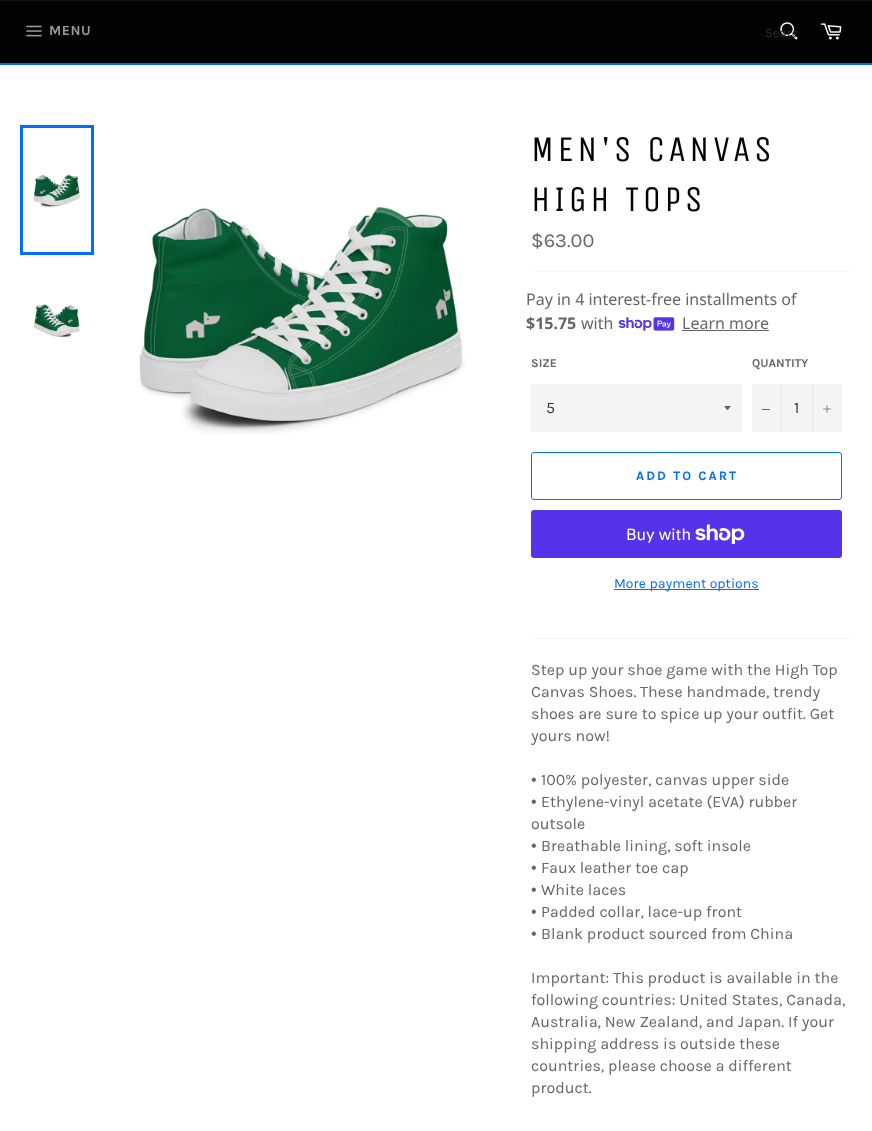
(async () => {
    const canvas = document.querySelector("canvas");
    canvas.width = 872;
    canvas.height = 1131;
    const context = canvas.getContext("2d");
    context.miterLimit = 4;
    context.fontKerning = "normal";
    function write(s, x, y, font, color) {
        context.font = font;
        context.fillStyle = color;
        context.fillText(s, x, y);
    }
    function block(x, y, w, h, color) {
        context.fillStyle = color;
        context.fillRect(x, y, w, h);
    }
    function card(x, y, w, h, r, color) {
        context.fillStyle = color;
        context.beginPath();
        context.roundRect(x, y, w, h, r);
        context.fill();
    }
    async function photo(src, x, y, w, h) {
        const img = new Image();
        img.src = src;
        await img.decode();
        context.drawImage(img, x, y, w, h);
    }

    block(0, 0, 872, 1131, "rgb(0, 110, 255)");
    block(0, 1, 872, 62, "rgb(3, 3, 3)");
    block(0, 0, 872, 1, "rgb(16, 16, 16)");
    await photo("media/1.png", 26, 25, 16, 12);
    context.letterSpacing = "0.5px";
    write("MENU", 49, 35, "bold 14px Karla", "rgb(154, 154, 154)");
    await photo("media/2.png", 780, 22, 18, 18);
    context.save();
    context.beginPath();
    context.rect(765, 25, 32, 15);
    context.clip();
    context.letterSpacing = "0px";
    write("Searc", 765, 37, "13px Karla", "rgb(43, 43, 43)");
    context.restore();
    await photo("media/3.png", 820, 23, 22, 17);
    block(0, 65, 872, 1066, "rgb(255, 255, 255)");
    await photo("media/4.png", 33, 174, 48, 34);
    context.strokeStyle = "rgb(0, 110, 255)";
    context.lineWidth = 3;
    context.strokeRect(21.5, 126.5, 71, 127);
    await photo("media/5.png", 33, 304, 47, 34);
    await photo("media/6.png", 139, 206, 327, 228);
    context.letterSpacing = "3.6px";
    write("MEN'S CANVAS", 531, 161, "36px Unica One", "rgb(3, 3, 3)");
    write("HIGH TOPS", 531, 211, "36px Unica One", "rgb(3, 3, 3)");
    context.letterSpacing = "0px";
    write("$63.00", 531, 247, "20px Karla", "rgb(102, 102, 102)");
    block(531, 271, 321, 1, "rgb(247, 247, 247)");
    write("Pay in 4 interest-free installments of", 526, 305, "16px Noto Sans", "rgb(102, 102, 102)");
    write("$15.75", 526, 329, "bold 16px Noto Sans", "rgb(102, 102, 102)");
    write("with", 581, 329, "16px Noto Sans", "rgb(102, 102, 102)");
    await photo("media/7.png", 618, 317, 57, 14);
    write("Learn more", 682, 329, "16px Noto Sans", "rgb(102, 102, 102)");
    block(682, 330, 87, 1, "rgb(102, 102, 102)");
    write("SIZE", 531, 367, "bold 12px Karla", "rgb(102, 102, 102)");
    block(531, 384, 211, 48, "rgb(244, 244, 244)");
    context.fillStyle = "rgb(102, 102, 102)";
    context.beginPath();
    context.moveTo(724, 406);
    context.bezierCurveTo(728.5, 411.5, 726.5, 411.5, 731, 406);
    context.closePath();
    context.fill();
    write("5", 546, 413, "16px Karla", "rgb(51, 51, 51)");
    write("QUANTITY", 752, 367, "bold 12px Karla", "rgb(102, 102, 102)");
    block(752, 384, 90, 48, "rgb(244, 244, 244)");
    block(781, 384, 1, 48, "rgb(231, 231, 231)");
    block(762, 409, 8, 1, "rgb(102, 102, 102)");
    write("1", 794, 413, "16px Karla", "rgb(51, 51, 51)");
    block(812, 384, 1, 48, "rgb(231, 231, 231)");
    await photo("media/8.png", 823, 405, 8, 8);
    context.beginPath();
    context.roundRect(531.5, 452.5, 310, 47, 2.5);
    context.lineWidth = 1;
    context.stroke();
    context.letterSpacing = "2px";
    write("ADD TO CART", 636, 480, "bold 13px Karla", "rgb(0, 110, 255)");
    card(531, 510, 311, 48, 3, "rgb(84, 51, 235)");
    context.letterSpacing = "0px";
    write("Buy with", 626, 540, "16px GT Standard", "rgb(255, 255, 255)");
    await photo("media/9.png", 695, 524, 50, 20);
    block(614, 589, 145, 1, "rgb(0, 110, 255)");
    write("More payment options", 614, 588, "14px Karla", "rgb(0, 110, 255)");
    block(531, 638, 321, 1, "rgb(247, 247, 247)");
    write("Step up your shoe game with the High Top", 531, 675, "16px Karla", "rgb(102, 102, 102)");
    write("Canvas Shoes. These handmade, trendy", 531, 697, "16px Karla", "rgb(102, 102, 102)");
    write("shoes are sure to spice up your outfit. Get", 531, 719, "16px Karla", "rgb(102, 102, 102)");
    write("yours now!", 531, 741, "16px Karla", "rgb(102, 102, 102)");
    write("•", 531, 785, "16px Liberation Sans", "rgb(102, 102, 102)");
    write("100% polyester, canvas upper side", 541, 785, "16px Karla", "rgb(102, 102, 102)");
    write("•", 531, 807, "16px Liberation Sans", "rgb(102, 102, 102)");
    write("Ethylene-vinyl acetate (EVA) rubber", 541, 807, "16px Karla", "rgb(102, 102, 102)");
    write("outsole", 531, 829, "16px Karla", "rgb(102, 102, 102)");
    write("•", 531, 851, "16px Liberation Sans", "rgb(102, 102, 102)");
    write("Breathable lining, soft insole", 541, 851, "16px Karla", "rgb(102, 102, 102)");
    write("•", 531, 873, "16px Liberation Sans", "rgb(102, 102, 102)");
    write("Faux leather toe cap", 541, 873, "16px Karla", "rgb(102, 102, 102)");
    write("•", 531, 895, "16px Liberation Sans", "rgb(102, 102, 102)");
    write("White laces", 541, 895, "16px Karla", "rgb(102, 102, 102)");
    write("•", 531, 917, "16px Liberation Sans", "rgb(102, 102, 102)");
    write("Padded collar, lace-up front", 541, 917, "16px Karla", "rgb(102, 102, 102)");
    write("•", 531, 939, "16px Liberation Sans", "rgb(102, 102, 102)");
    write("Blank product sourced from China", 541, 939, "16px Karla", "rgb(102, 102, 102)");
    write("Important: This product is available in the", 531, 983, "16px Karla", "rgb(102, 102, 102)");
    write("following countries: United States, Canada,", 531, 1005, "16px Karla", "rgb(102, 102, 102)");
    write("Australia, New Zealand, and Japan. If your", 531, 1027, "16px Karla", "rgb(102, 102, 102)");
    write("shipping address is outside these", 531, 1049, "16px Karla", "rgb(102, 102, 102)");
    write("countries, please choose a different", 531, 1071, "16px Karla", "rgb(102, 102, 102)");
    write("product.", 531, 1093, "16px Karla", "rgb(102, 102, 102)");
})();
